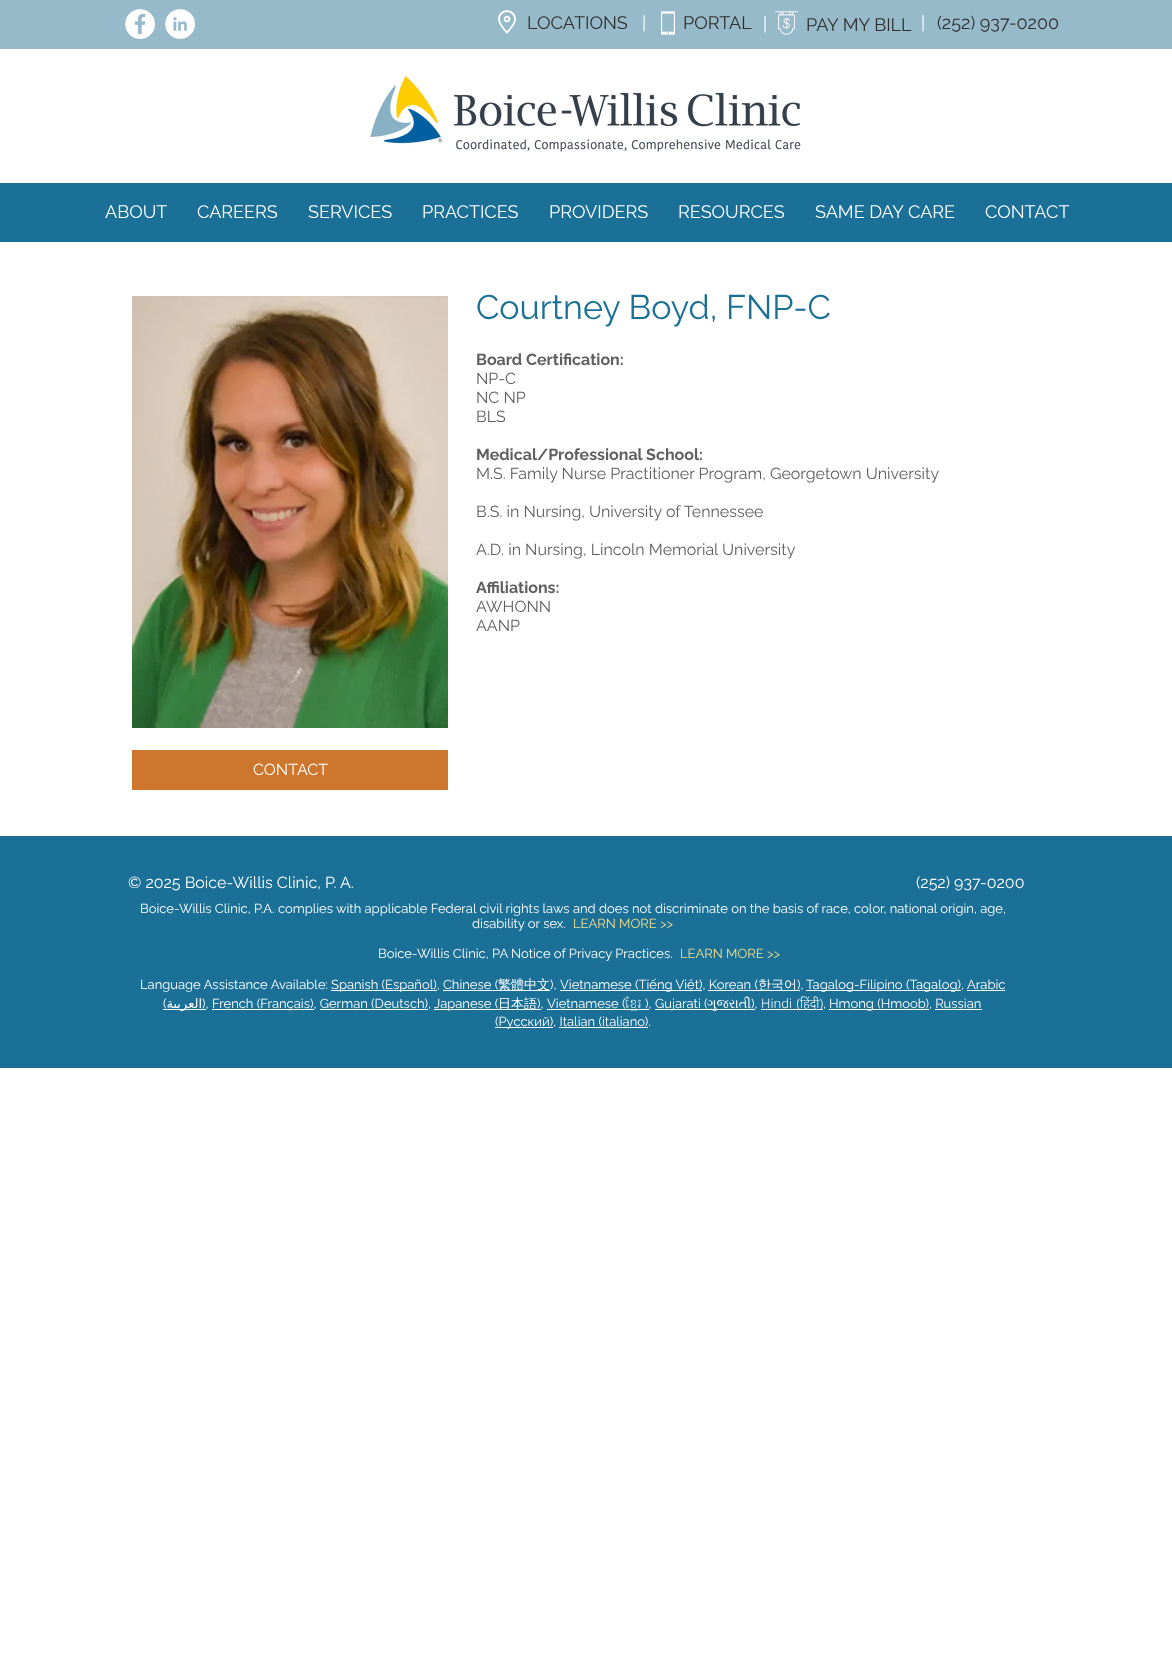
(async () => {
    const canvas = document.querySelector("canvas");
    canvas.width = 1172;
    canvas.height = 1677;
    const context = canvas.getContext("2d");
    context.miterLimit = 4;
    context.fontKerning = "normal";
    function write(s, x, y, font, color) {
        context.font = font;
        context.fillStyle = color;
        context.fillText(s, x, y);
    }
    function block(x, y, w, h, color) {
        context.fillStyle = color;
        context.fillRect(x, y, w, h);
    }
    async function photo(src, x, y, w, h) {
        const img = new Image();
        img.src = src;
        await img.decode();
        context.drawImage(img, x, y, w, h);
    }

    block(0, 0, 1172, 1677, "rgb(255, 255, 255)");
    block(0, 0, 1172, 49, "rgb(150, 186, 201)");
    await photo("media/1.png", 125, 9, 30, 30);
    await photo("media/2.png", 165, 9, 30, 30);
    await photo("media/3.png", 498, 10, 18, 24);
    write("LOCA", 527, 29, "18px Raleway", "rgb(47, 46, 46)");
    write("TIONS", 574, 29, "18px Raleway", "rgb(47, 46, 46)");
    write("|", 642, 29, "18px Raleway", "rgb(255, 255, 255)");
    await photo("media/4.png", 661, 11, 14, 24);
    write("PORTAL", 683, 29, "18px Raleway", "rgb(47, 46, 46)");
    write("|", 763, 30, "18px Raleway", "rgb(255, 255, 255)");
    await photo("media/5.png", 775, 11, 23, 24);
    write("PAY MY BILL", 806, 31, "18px Raleway", "rgb(47, 46, 46)");
    write("|", 921, 29, "18px Raleway", "rgb(255, 255, 255)");
    write("(252) 937-0200", 937, 29, "18px Raleway", "rgb(47, 46, 46)");
    await photo("media/6.png", 370, 76, 431, 76);
    block(0, 183, 1172, 59, "rgb(26, 112, 151)");
    write("ABOUT", 105, 218, "18px Raleway", "rgb(255, 255, 255)");
    write("CAREERS", 197, 218, "18px Raleway", "rgb(255, 255, 255)");
    write("SERVICES", 308, 218, "18px Raleway", "rgb(255, 255, 255)");
    write("PRACTICES", 422, 218, "18px Raleway", "rgb(255, 255, 255)");
    write("PROVIDERS", 549, 218, "18px Raleway", "rgb(255, 255, 255)");
    write("RESOURCES", 678, 218, "18px Raleway", "rgb(255, 255, 255)");
    write("SAME DAY CARE", 815, 218, "18px Raleway", "rgb(255, 255, 255)");
    write("CONTACT", 985, 218, "18px Raleway", "rgb(255, 255, 255)");
    await photo("media/7.png", 132, 296, 316, 432);
    write("Courtney Boyd, FNP-C", 476, 319, "34px Raleway", "rgb(26, 112, 151)");
    write("Board Certification:", 476, 365, "bold 16px Raleway", "rgb(96, 94, 94)");
    write("NP-C", 476, 384, "16px Raleway", "rgb(96, 94, 94)");
    write("NC NP", 476, 403, "16px Raleway", "rgb(96, 94, 94)");
    write("BLS", 476, 422, "16px Raleway", "rgb(96, 94, 94)");
    write("Medical/Professional School:", 476, 460, "bold 16px Raleway", "rgb(96, 94, 94)");
    write("M.S. Family Nurse Practitioner Program, Georgetown University", 476, 479, "16px Raleway", "rgb(96, 94, 94)");
    write("B.S. in Nursing, University of Tennessee", 476, 517, "16px Raleway", "rgb(96, 94, 94)");
    write("A.D. in Nursing, Lincoln Memorial University", 476, 555, "16px Raleway", "rgb(96, 94, 94)");
    write("Affiliations:", 476, 593, "bold 16px Raleway", "rgb(96, 94, 94)");
    write("AWHONN", 476, 612, "16px Raleway", "rgb(96, 94, 94)");
    write("AANP", 476, 631, "16px Raleway", "rgb(96, 94, 94)");
    block(132, 750, 316, 40, "rgb(204, 119, 45)");
    write("CONTACT", 253, 775, "16px Raleway", "rgb(255, 255, 255)");
    block(0, 836, 1172, 232, "rgb(26, 112, 151)");
    write("© 2025 Boice-Willis Clinic, P. A.", 128, 888, "16px Raleway", "rgb(255, 255, 255)");
    write("(252) 937-0200", 916, 888, "16px Raleway", "rgb(255, 255, 255)");
    write("Boice-Willis Clinic, P.A. complies with applicable Federal civil rights laws and does not discriminate on the basis of race, color, national origin, age,", 140, 913, "13px Raleway", "rgb(255, 255, 255)");
    write("disability or sex.", 472, 928, "13px Raleway", "rgb(255, 255, 255)");
    write("LEARN MORE >>", 573, 928, "13px Raleway", "rgb(247, 223, 141)");
    write("Boice-Willis Clinic, PA Notice of Privacy Practices.", 378, 958, "13px Raleway", "rgb(255, 255, 255)");
    write("LEARN MORE >>", 680, 958, "13px Raleway", "rgb(247, 223, 141)");
    write("Language Assistance Available:", 140, 989, "13px Raleway", "rgb(255, 255, 255)");
    block(331, 990, 106, 1, "rgb(255, 255, 255)");
    write("Spanish (Español), Chinese (", 331, 989, "13px Raleway", "rgb(255, 255, 255)");
    block(443, 990, 107, 1, "rgb(255, 255, 255)");
    write("繁體中文", 498, 989, "500 13px WenQuanYi Zen Hei", "rgb(255, 255, 255)");
    write("),", 550, 989, "13px Raleway", "rgb(255, 255, 255)");
    block(560, 990, 142, 1, "rgb(255, 255, 255)");
    write("Vietnamese (Tiếng Việt), Korean (", 560, 989, "13px Raleway", "rgb(255, 255, 255)");
    block(708, 990, 92, 1, "rgb(255, 255, 255)");
    write("한국어", 758, 989, "500 13px WenQuanYi Zen Hei", "rgb(255, 255, 255)");
    write("),", 797, 989, "13px Raleway", "rgb(255, 255, 255)");
    block(806, 990, 155, 1, "rgb(255, 255, 255)");
    write("Tagalog-Filipino (Tagalog),", 806, 989, "13px Raleway", "rgb(255, 255, 255)");
    write("Arabic", 967, 989, "13px Raleway", "rgb(255, 255, 255)");
    block(967, 990, 38, 1, "rgb(255, 255, 255)");
    write("(", 163, 1008, "13px Raleway", "rgb(255, 255, 255)");
    block(163, 1009, 43, 1, "rgb(255, 255, 255)");
    context.direction = "rtl";
    write("العربية", 202, 1008, "13px DejaVu Sans", "rgb(255, 255, 255)");
    context.direction = "ltr";
    write("),", 202, 1008, "13px Raleway", "rgb(255, 255, 255)");
    block(212, 1009, 102, 1, "rgb(255, 255, 255)");
    write("French (Français), German (Deutsch),", 212, 1008, "13px Raleway", "rgb(255, 255, 255)");
    block(320, 1009, 108, 1, "rgb(255, 255, 255)");
    block(434, 1009, 107, 1, "rgb(255, 255, 255)");
    write("Japanese (", 434, 1008, "13px Raleway", "rgb(255, 255, 255)");
    write("日本語", 498, 1008, "500 13px WenQuanYi Zen Hei", "rgb(255, 255, 255)");
    write("),", 537, 1008, "13px Raleway", "rgb(255, 255, 255)");
    write("Vietnamese (", 547, 1008, "13px Raleway", "rgb(255, 255, 255)");
    block(547, 1009, 102, 1, "rgb(255, 255, 255)");
    write("ខ្មែរ", 625, 1008, "200 13px Hanuman", "rgb(255, 255, 255)");
    write("),", 645, 1008, "13px Raleway", "rgb(255, 255, 255)");
    block(655, 1009, 100, 1, "rgb(255, 255, 255)");
    write("Gujarati (", 655, 1008, "13px Raleway", "rgb(255, 255, 255)");
    write("ગુજરાતી", 707, 1008, "13px FreeSerif", "rgb(255, 255, 255)");
    write("),", 751, 1008, "13px Raleway", "rgb(255, 255, 255)");
    block(761, 1009, 62, 1, "rgb(255, 255, 255)");
    context.wordSpacing = "1px";
    write("Hindi (हिंदी)", 761, 1008, "300 13px Noto Sans", "rgb(255, 255, 255)");
    context.wordSpacing = "0px";
    write(",", 823, 1008, "13px Raleway", "rgb(255, 255, 255)");
    block(829, 1009, 100, 1, "rgb(255, 255, 255)");
    write("Hmong (Hmoob), Russian", 829, 1008, "13px Raleway", "rgb(255, 255, 255)");
    block(935, 1009, 47, 1, "rgb(255, 255, 255)");
    block(495, 1027, 58, 1, "rgb(255, 255, 255)");
    write("(Русский), Italian (italiano).", 495, 1026, "13px Raleway", "rgb(255, 255, 255)");
    block(559, 1027, 89, 1, "rgb(255, 255, 255)");
})();
